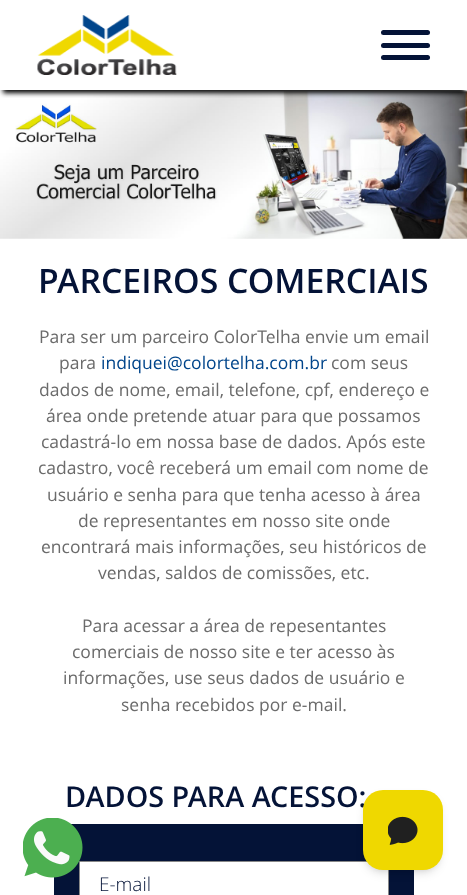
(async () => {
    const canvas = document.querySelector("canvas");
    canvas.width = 467;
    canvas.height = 895;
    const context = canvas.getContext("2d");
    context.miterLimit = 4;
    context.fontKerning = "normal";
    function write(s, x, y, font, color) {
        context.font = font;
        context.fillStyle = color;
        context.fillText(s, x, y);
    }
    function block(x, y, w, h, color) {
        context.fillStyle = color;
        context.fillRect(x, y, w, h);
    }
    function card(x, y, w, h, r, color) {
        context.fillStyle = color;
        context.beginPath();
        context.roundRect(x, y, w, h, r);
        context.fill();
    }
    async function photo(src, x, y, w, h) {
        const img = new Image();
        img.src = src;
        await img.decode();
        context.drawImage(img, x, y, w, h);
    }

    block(0, 0, 467, 895, "rgb(255, 255, 255)");
    await photo("media/2.png", 0, 91, 467, 148);
    context.save();
    context.beginPath();
    context.rect(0, 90, 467, 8);
    context.clip();
    context.fillStyle = "rgb(0, 0, 0)";
    context.filter = "blur(2.5px)";
    context.beginPath();
    context.rect(3, 8, 462, 85);
    context.fill();
    context.filter = "none";
    context.restore();
    await photo("media/1.png", 37, 15, 140, 60);
    card(381, 43, 49, 5, 2.5, "rgb(4, 19, 55)");
    card(381, 30, 49, 5, 2.5, "rgb(4, 19, 55)");
    card(381, 55, 49, 5, 2.5, "rgb(4, 19, 55)");
    write("PARCEIROS COMERCIAIS", 38, 293, "600 33.75px Open Sans", "rgb(4, 19, 55)");
    write("Para ser um parceiro ColorTelha envie um email", 39, 343, "17.5px Open Sans", "rgb(107, 107, 107)");
    write("para", 59, 369, "17.5px Open Sans", "rgb(107, 107, 107)");
    write("indiquei@colortelha.com.br", 101, 369, "17.5px Open Sans", "rgb(0, 69, 139)");
    write("com seus", 331, 369, "17.5px Open Sans", "rgb(107, 107, 107)");
    write("dados de nome, email, telefone, cpf, endereço e", 39, 396, "17.5px Open Sans", "rgb(107, 107, 107)");
    write("área onde pretende atuar para que possamos", 46, 422, "17.5px Open Sans", "rgb(107, 107, 107)");
    write("cadastrá-lo em nossa base de dados. Após este", 41, 448, "17.5px Open Sans", "rgb(107, 107, 107)");
    write("cadastro, você receberá um email com nome de", 38, 474, "17.5px Open Sans", "rgb(107, 107, 107)");
    write("usuário e senha para que tenha acesso à área", 47, 501, "17.5px Open Sans", "rgb(107, 107, 107)");
    write("de representantes em nosso site onde", 78, 527, "17.5px Open Sans", "rgb(107, 107, 107)");
    write("encontrará mais informações, seu históricos de", 41, 553, "17.5px Open Sans", "rgb(107, 107, 107)");
    write("vendas, saldos de comissões, etc.", 98, 579, "17.5px Open Sans", "rgb(107, 107, 107)");
    write("Para acessar a área de repesentantes", 82, 632, "17.5px Open Sans", "rgb(107, 107, 107)");
    write("comerciais de nosso site e ter acesso às", 72, 658, "17.5px Open Sans", "rgb(107, 107, 107)");
    write("informações, use seus dados de usuário e", 63, 684, "17.5px Open Sans", "rgb(107, 107, 107)");
    write("senha recebidos por e-mail.", 121, 711, "17.5px Open Sans", "rgb(107, 107, 107)");
    write("DADOS PARA ACESSO:", 65, 807, "600 28.75px Open Sans", "rgb(4, 19, 55)");
    block(54, 824, 360, 71, "rgb(4, 19, 55)");
    context.fillStyle = "rgb(255, 255, 255)";
    context.beginPath();
    context.rect(79.5, 861.5, 309, 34);
    context.fill();
    context.strokeStyle = "rgb(136, 136, 136)";
    context.stroke();
    write("E-mail", 99, 891, "300 19px Open Sans", "rgb(4, 19, 55)");
    await photo("media/3.png", 23, 818, 60, 60);
    context.fillStyle = "rgba(0, 0, 0, 0.1)";
    context.filter = "blur(2.5px)";
    context.beginPath();
    context.roundRect(365, 795, 75, 75, 18);
    context.fill();
    context.filter = "none";
    context.filter = "blur(4px)";
    context.beginPath();
    context.roundRect(364, 796, 77, 78, 19);
    context.fill();
    context.filter = "none";
    card(363, 790, 80, 80, 20, "rgb(239, 216, 0)");
    await photo("media/4.png", 388, 816, 30, 29);
})();
